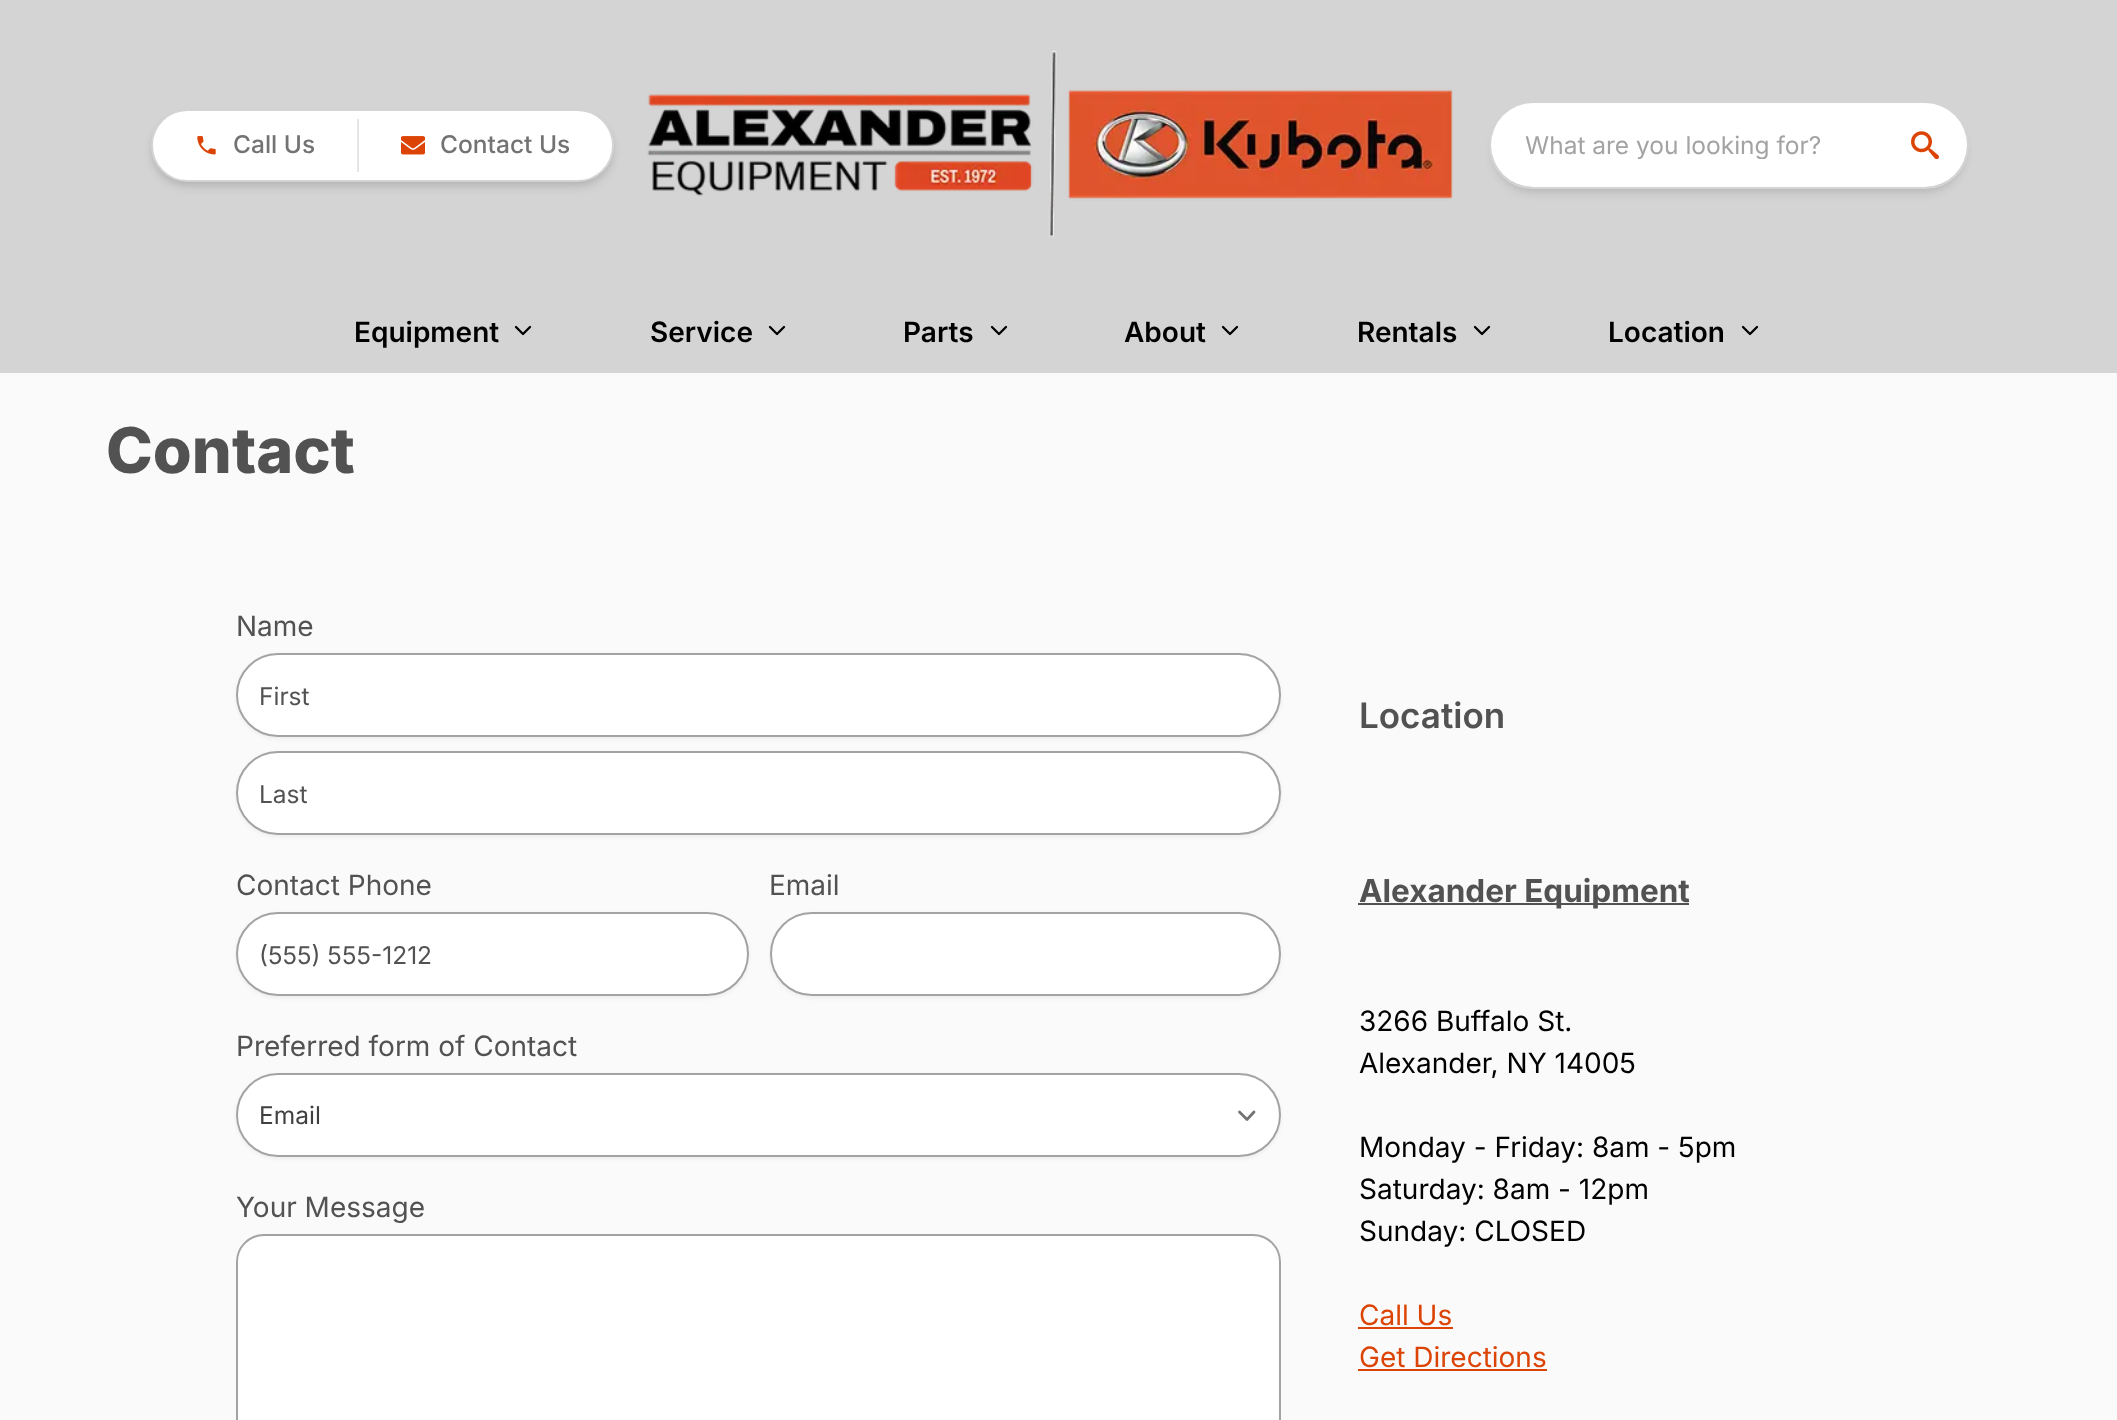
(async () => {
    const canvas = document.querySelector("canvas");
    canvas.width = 2117;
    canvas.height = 1420;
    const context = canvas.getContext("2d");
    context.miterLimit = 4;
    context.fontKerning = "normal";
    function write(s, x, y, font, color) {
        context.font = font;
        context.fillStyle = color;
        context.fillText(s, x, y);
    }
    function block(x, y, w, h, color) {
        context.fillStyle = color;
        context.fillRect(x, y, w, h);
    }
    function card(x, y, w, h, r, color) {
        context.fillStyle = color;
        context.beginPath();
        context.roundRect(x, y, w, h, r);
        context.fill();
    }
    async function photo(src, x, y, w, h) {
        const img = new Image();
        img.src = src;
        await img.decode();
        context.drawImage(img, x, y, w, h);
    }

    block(0, 0, 2117, 1420, "rgb(250, 250, 250)");
    block(0, 0, 2117, 373, "rgb(212, 212, 212)");
    context.fillStyle = "rgba(0, 0, 0, 0.1)";
    context.filter = "blur(3.5px)";
    context.beginPath();
    context.roundRect(154, 116, 457, 66, 33);
    context.fill();
    context.filter = "none";
    context.filter = "blur(5px)";
    context.beginPath();
    context.roundRect(152, 117, 461, 70, 35);
    context.fill();
    context.filter = "none";
    context.fillStyle = "rgb(255, 255, 255)";
    context.beginPath();
    context.roundRect(152, 110, 461, 71, 35.5);
    context.fill();
    context.strokeStyle = "rgb(212, 212, 212)";
    context.lineWidth = 2;
    context.stroke();
    await photo("media/1.png", 197, 136, 19, 19);
    write("Call Us", 233, 153, "500 24.5px Inter", "rgb(115, 115, 115)");
    block(357, 119, 2, 53, "rgb(229, 229, 229)");
    await photo("media/2.png", 401, 136, 24, 19);
    write("Contact Us", 440, 153, "500 24.5px Inter", "rgb(115, 115, 115)");
    await photo("media/3.png", 647, 50, 806, 188);
    context.fillStyle = "rgba(0, 0, 0, 0.1)";
    context.filter = "blur(3.5px)";
    context.beginPath();
    context.roundRect(1495, 110, 469, 77, 38.5);
    context.fill();
    context.filter = "none";
    context.filter = "blur(5px)";
    context.beginPath();
    context.roundRect(1493, 112, 472, 81, 40.5);
    context.fill();
    context.filter = "none";
    context.beginPath();
    context.roundRect(1490, 103, 478, 85, 42.5);
    context.stroke();
    card(1491, 103, 476, 84, 42, "rgb(255, 255, 255)");
    context.save();
    context.beginPath();
    context.rect(1526, 130, 301, 29);
    context.clip();
    write("What are you looking for?", 1525, 154, "24.5px Inter", "rgb(163, 163, 163)");
    context.restore();
    await photo("media/4.png", 1911, 131, 28, 28);
    write("Equipment", 354, 342, "600 28px Inter", "rgb(0, 0, 0)");
    context.beginPath();
    context.moveTo(516, 327);
    context.lineTo(523, 334);
    context.lineTo(530, 327);
    context.strokeStyle = "rgb(0, 0, 0)";
    context.lineWidth = 2.3;
    context.lineCap = "round";
    context.lineJoin = "round";
    context.stroke();
    write("Service", 650, 342, "600 28px Inter", "rgb(0, 0, 0)");
    context.beginPath();
    context.moveTo(770, 327);
    context.lineTo(777, 334);
    context.lineTo(784, 327);
    context.stroke();
    write("Parts", 903, 342, "600 28px Inter", "rgb(0, 0, 0)");
    context.beginPath();
    context.moveTo(992, 327);
    context.lineTo(999, 334);
    context.lineTo(1006, 327);
    context.stroke();
    write("About", 1124, 342, "600 28px Inter", "rgb(0, 0, 0)");
    context.beginPath();
    context.moveTo(1223, 327);
    context.lineTo(1230, 334);
    context.lineTo(1237, 327);
    context.stroke();
    write("Rentals", 1357, 342, "600 28px Inter", "rgb(0, 0, 0)");
    context.beginPath();
    context.moveTo(1475, 327);
    context.lineTo(1482, 334);
    context.lineTo(1489, 327);
    context.stroke();
    write("Location", 1608, 342, "600 28px Inter", "rgb(0, 0, 0)");
    context.beginPath();
    context.moveTo(1743, 327);
    context.lineTo(1750, 334);
    context.lineTo(1757, 327);
    context.stroke();
    write("Contact", 106, 473, "800 63px Inter", "rgb(82, 82, 82)");
    write("Name", 236, 636, "28px Inter", "rgb(82, 82, 82)");
    context.fillStyle = "rgba(0, 0, 0, 0.05)";
    context.filter = "blur(2px)";
    context.beginPath();
    context.roundRect(236, 655, 1045, 84, 42);
    context.fill();
    context.filter = "none";
    context.fillStyle = "rgb(255, 255, 255)";
    context.beginPath();
    context.roundRect(237, 654, 1043, 82, 41);
    context.fill();
    context.strokeStyle = "rgb(163, 163, 163)";
    context.lineWidth = 2;
    context.lineJoin = "miter";
    context.stroke();
    write("First", 259, 705, "24.5px Inter", "rgb(82, 82, 82)");
    context.fillStyle = "rgba(0, 0, 0, 0.05)";
    context.filter = "blur(2px)";
    context.beginPath();
    context.roundRect(236, 753, 1045, 84, 42);
    context.fill();
    context.filter = "none";
    context.fillStyle = "rgb(255, 255, 255)";
    context.beginPath();
    context.roundRect(237, 752, 1043, 82, 41);
    context.fill();
    context.stroke();
    write("Last", 259, 803, "24.5px Inter", "rgb(82, 82, 82)");
    write("Contact Phone", 236, 895, "28px Inter", "rgb(82, 82, 82)");
    context.fillStyle = "rgba(0, 0, 0, 0.05)";
    context.filter = "blur(2px)";
    context.beginPath();
    context.roundRect(236, 914, 513, 84, 42);
    context.fill();
    context.filter = "none";
    context.fillStyle = "rgb(255, 255, 255)";
    context.beginPath();
    context.roundRect(237, 913, 511, 82, 41);
    context.fill();
    context.stroke();
    write("(555) 555-1212", 259, 964, "24.5px Inter", "rgb(82, 82, 82)");
    write("Email", 769, 895, "28px Inter", "rgb(82, 82, 82)");
    context.fillStyle = "rgba(0, 0, 0, 0.05)";
    context.filter = "blur(2px)";
    context.beginPath();
    context.roundRect(770, 914, 511, 84, 42);
    context.fill();
    context.filter = "none";
    context.fillStyle = "rgb(255, 255, 255)";
    context.beginPath();
    context.roundRect(771, 913, 509, 82, 41);
    context.fill();
    context.stroke();
    write("Preferred form of Contact", 236, 1056, "28px Inter", "rgb(82, 82, 82)");
    context.fillStyle = "rgba(0, 0, 0, 0.05)";
    context.filter = "blur(2px)";
    context.beginPath();
    context.roundRect(236, 1075, 1045, 84, 42);
    context.fill();
    context.filter = "none";
    card(236, 1073, 1045, 84, 42, "rgb(255, 255, 255)");
    context.beginPath();
    context.moveTo(1239.5, 1112);
    context.lineTo(1247, 1119.5);
    context.lineTo(1254, 1112);
    context.strokeStyle = "rgb(115, 115, 115)";
    context.lineWidth = 2.8;
    context.lineJoin = "round";
    context.stroke();
    context.beginPath();
    context.roundRect(237, 1074, 1043, 82, 41);
    context.strokeStyle = "rgb(163, 163, 163)";
    context.lineWidth = 2;
    context.lineJoin = "miter";
    context.stroke();
    write("Email", 259, 1124, "24.5px Inter", "rgb(64, 64, 64)");
    write("Your Message", 236, 1217, "28px Inter", "rgb(82, 82, 82)");
    context.fillStyle = "rgb(255, 255, 255)";
    context.beginPath();
    context.roundRect(237, 1235, 1043, 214, 27);
    context.fill();
    context.stroke();
    write("Location", 1359, 728, "600 35px Inter", "rgb(82, 82, 82)");
    block(1358, 903, 331, 2, "rgb(82, 82, 82)");
    write("Alexander Equipment", 1359, 902, "bold 31.5px Inter", "rgb(82, 82, 82)");
    write("3266 Buffalo St.", 1359, 1031, "28px Inter", "rgb(0, 0, 0)");
    write("Alexander, NY 14005", 1359, 1073, "28px Inter", "rgb(0, 0, 0)");
    write("Monday - Friday: 8am - 5pm", 1359, 1157, "28px Inter", "rgb(0, 0, 0)");
    write("Saturday: 8am - 12pm", 1359, 1199, "28px Inter", "rgb(0, 0, 0)");
    write("Sunday: CLOSED", 1359, 1241, "28px Inter", "rgb(0, 0, 0)");
    write("Call Us", 1359, 1325, "28px Inter", "rgb(220, 68, 5)");
    block(1358, 1327, 95, 2, "rgb(220, 68, 5)");
    write("Get Directions", 1359, 1367, "28px Inter", "rgb(220, 68, 5)");
    block(1358, 1369, 189, 2, "rgb(220, 68, 5)");
})();
